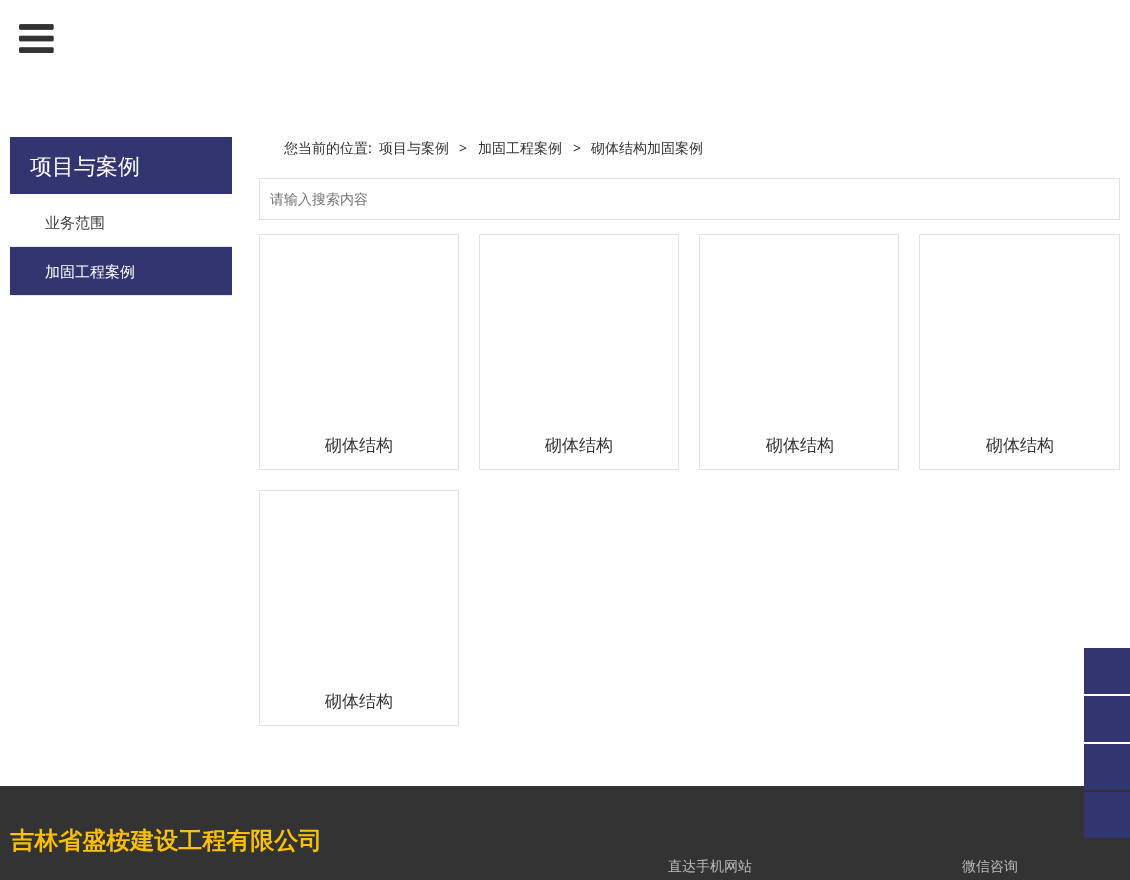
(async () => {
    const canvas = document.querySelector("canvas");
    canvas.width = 1130;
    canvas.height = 880;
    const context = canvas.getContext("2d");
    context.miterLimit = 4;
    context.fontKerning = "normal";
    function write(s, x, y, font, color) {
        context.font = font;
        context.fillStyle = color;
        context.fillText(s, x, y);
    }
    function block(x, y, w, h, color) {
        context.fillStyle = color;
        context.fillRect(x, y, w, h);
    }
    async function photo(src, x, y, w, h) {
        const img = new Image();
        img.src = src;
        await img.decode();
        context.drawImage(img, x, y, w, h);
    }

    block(0, 0, 1130, 880, "rgb(255, 255, 255)");
    await photo("media/1.png", 19, 24, 35, 29);
    block(10, 137, 222, 57, "rgb(51, 53, 112)");
    write("项目与案例", 30, 174, "500 22px WenQuanYi Zen Hei", "rgb(255, 255, 255)");
    block(10, 246, 222, 1, "rgb(231, 231, 231)");
    write("业务范围", 45, 228, "500 15px WenQuanYi Zen Hei", "rgb(64, 64, 64)");
    block(10, 295, 222, 1, "rgb(231, 231, 231)");
    block(10, 247, 222, 48, "rgb(51, 53, 112)");
    write("加固工程案例", 45, 277, "500 15px WenQuanYi Zen Hei", "rgb(255, 255, 255)");
    write("您当前的位置", 284, 153, "500 14px WenQuanYi Zen Hei", "rgb(51, 51, 51)");
    write(":", 368, 153, "14px Noto Sans", "rgb(51, 51, 51)");
    write("项目与案例", 379, 153, "500 14px WenQuanYi Zen Hei", "rgb(51, 51, 51)");
    write(">", 459, 153, "14px Noto Sans", "rgb(51, 51, 51)");
    write("加固工程案例", 478, 153, "500 14px WenQuanYi Zen Hei", "rgb(51, 51, 51)");
    write(">", 573, 153, "14px Noto Sans", "rgb(51, 51, 51)");
    write("砌体结构加固案例", 591, 153, "500 14px WenQuanYi Zen Hei", "rgb(51, 51, 51)");
    context.strokeStyle = "rgb(224, 224, 224)";
    context.strokeRect(259.5, 178.5, 860, 41);
    write("请输入搜索内容", 270, 204, "500 14px WenQuanYi Zen Hei", "rgb(117, 117, 117)");
    context.strokeRect(259.5, 234.5, 199, 235);
    write("砌体结构", 325, 451, "500 17px WenQuanYi Zen Hei", "rgb(51, 51, 51)");
    context.strokeRect(479.5, 234.5, 199, 235);
    write("砌体结构", 545, 451, "500 17px WenQuanYi Zen Hei", "rgb(51, 51, 51)");
    context.strokeRect(699.5, 234.5, 199, 235);
    write("砌体结构", 766, 451, "500 17px WenQuanYi Zen Hei", "rgb(51, 51, 51)");
    context.strokeRect(919.5, 234.5, 200, 235);
    write("砌体结构", 986, 451, "500 17px WenQuanYi Zen Hei", "rgb(51, 51, 51)");
    context.strokeRect(259.5, 490.5, 199, 235);
    write("砌体结构", 325, 707, "500 17px WenQuanYi Zen Hei", "rgb(51, 51, 51)");
    block(0, 786, 1130, 94, "rgb(51, 51, 51)");
    block(1084, 648, 46, 46, "rgb(51, 53, 112)");
    block(1084, 696, 46, 46, "rgb(51, 53, 112)");
    block(1084, 744, 46, 46, "rgb(51, 53, 112)");
    block(1084, 792, 46, 46, "rgb(51, 53, 112)");
    write("吉林省盛桉建设工程有限公司", 10, 849, "bold 24px WenQuanYi Zen Hei", "rgb(255, 192, 0)");
    write("直达手机网站", 668, 871, "500 14px WenQuanYi Zen Hei", "rgb(187, 187, 187)");
    write("微信咨询", 962, 871, "500 14px WenQuanYi Zen Hei", "rgb(187, 187, 187)");
})();
